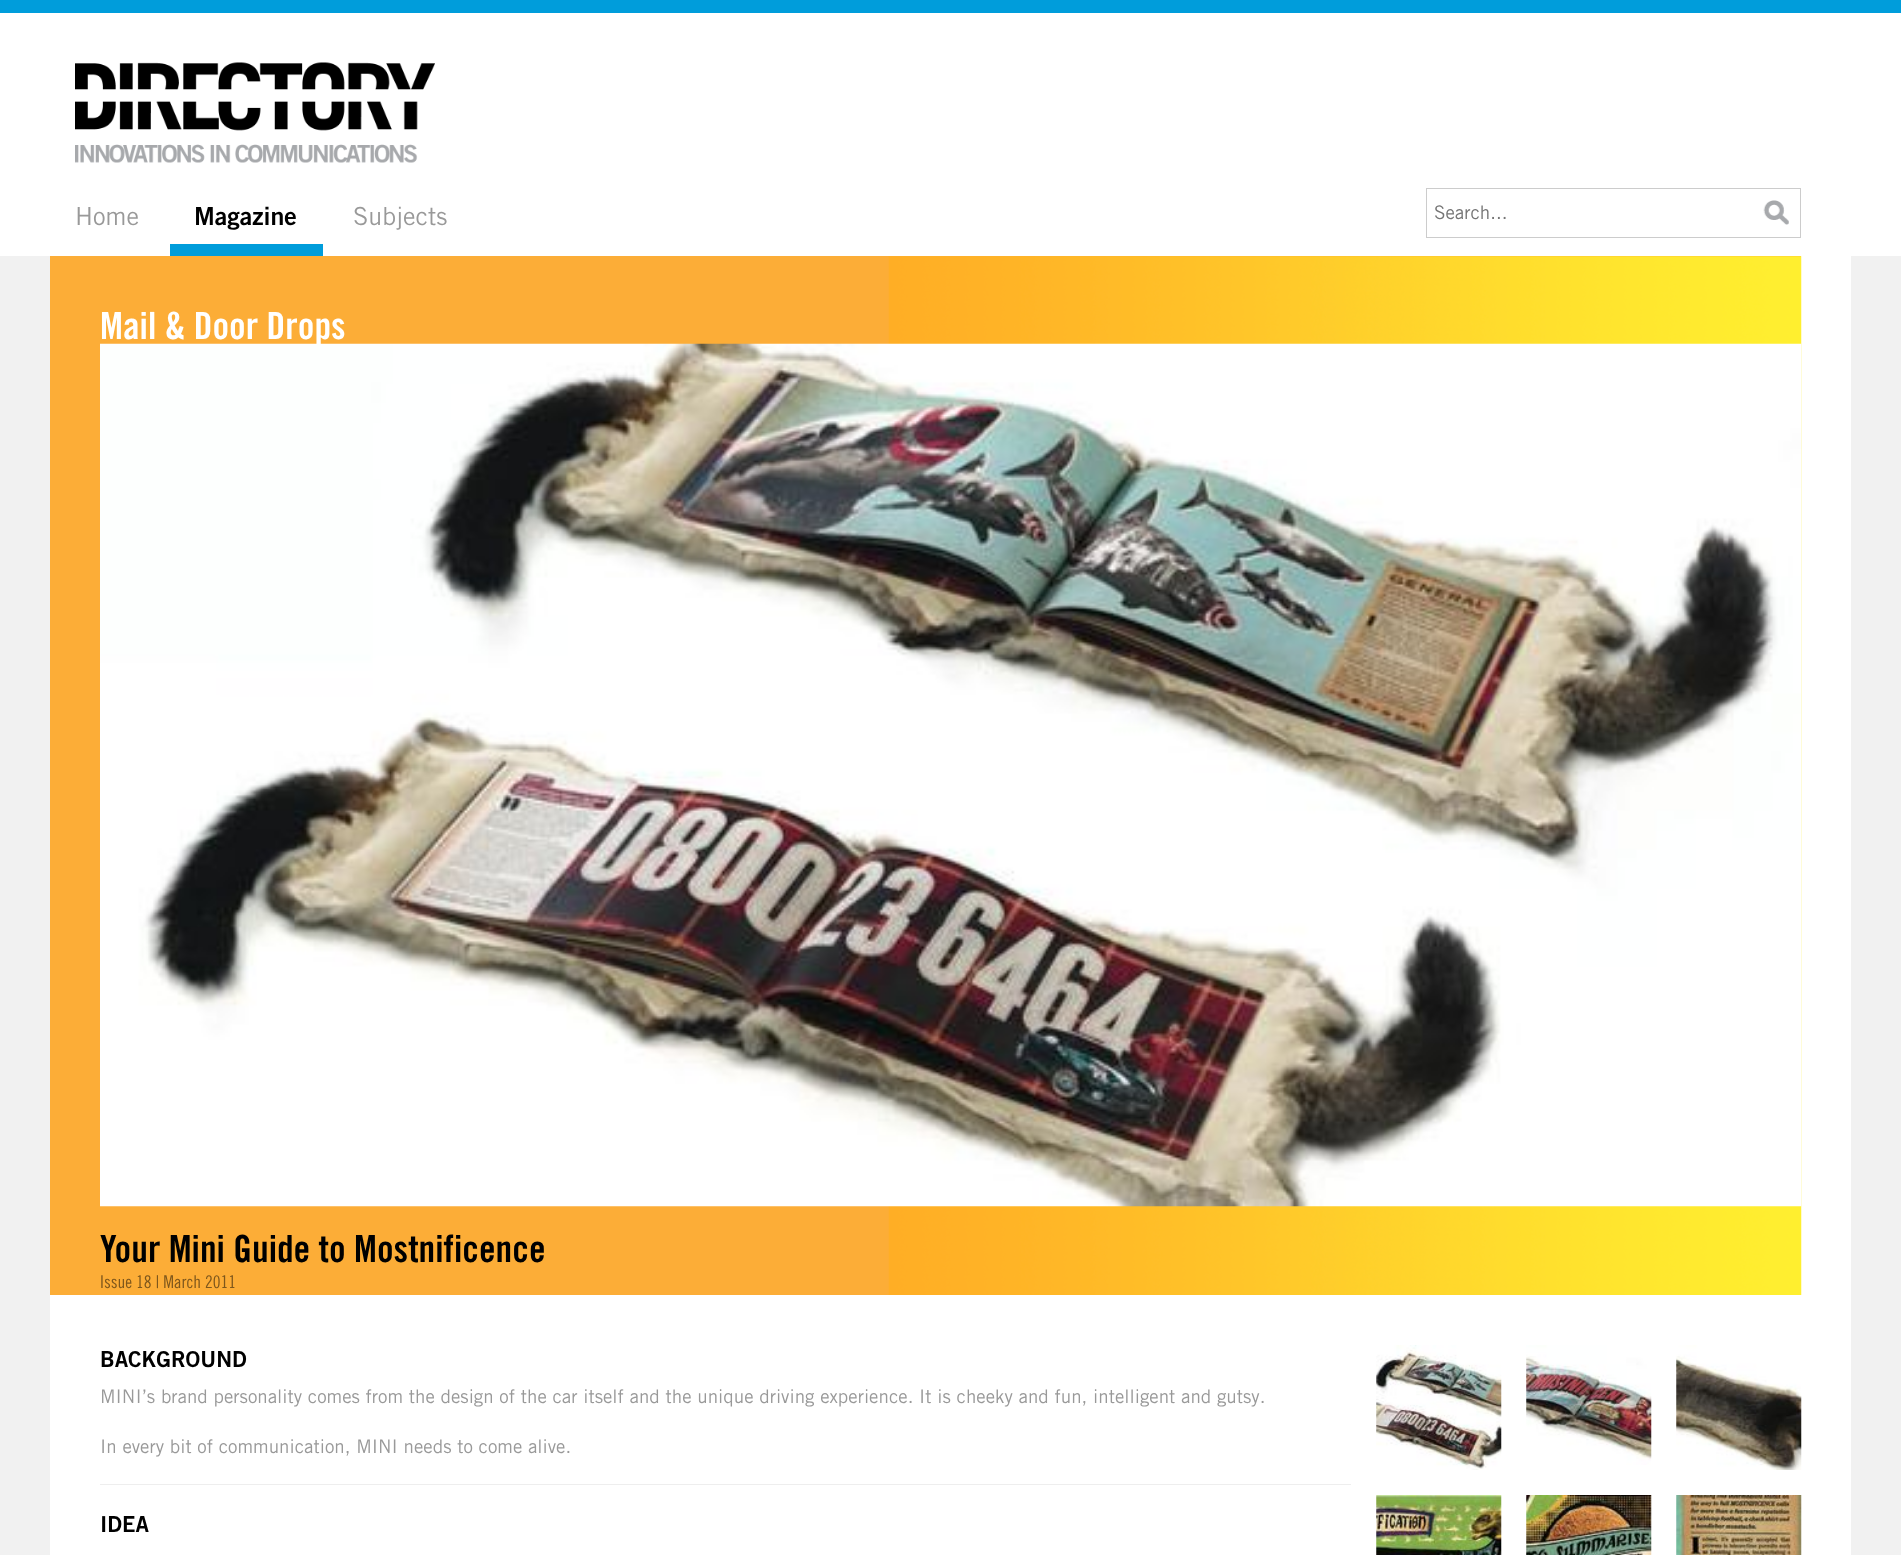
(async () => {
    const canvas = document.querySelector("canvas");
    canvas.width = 1901;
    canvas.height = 1555;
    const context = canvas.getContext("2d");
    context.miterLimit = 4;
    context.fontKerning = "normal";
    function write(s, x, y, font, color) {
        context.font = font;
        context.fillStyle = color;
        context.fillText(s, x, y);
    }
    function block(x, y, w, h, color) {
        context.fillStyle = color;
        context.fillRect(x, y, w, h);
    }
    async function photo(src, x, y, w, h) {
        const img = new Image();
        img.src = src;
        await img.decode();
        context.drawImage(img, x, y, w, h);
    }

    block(0, 0, 1901, 1555, "rgb(241, 241, 241)");
    block(0, 13, 1901, 243, "rgb(255, 255, 255)");
    block(0, 0, 1901, 13, "rgb(0, 157, 219)");
    await photo("media/1.png", 75, 62, 360, 101);
    write("Home", 75, 225, "25px Trade Gothic", "rgb(153, 153, 153)");
    block(170, 244, 153, 12, "rgb(0, 157, 219)");
    write("Magazine", 194, 225, "bold 25px Trade Gothic", "rgb(0, 0, 0)");
    write("Subjects", 353, 225, "25px Trade Gothic", "rgb(153, 153, 153)");
    context.strokeStyle = "rgb(204, 204, 204)";
    context.strokeRect(1426.5, 188.5, 374, 49);
    write("Search...", 1434, 219, "18.75px Trade Gothic", "rgb(117, 117, 117)");
    await photo("media/2.png", 1763, 200, 26, 25);
    block(50, 256, 1801, 1299, "rgb(255, 255, 255)");
    block(50, 256, 1751, 1039, "rgb(252, 173, 55)");
    await photo("media/3.png", 888, 256, 914, 1039);
    write("Mail & Door Drops", 100, 339, "bold 37.5px 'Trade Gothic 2'", "rgb(255, 255, 255)");
    await photo("media/4.png", 100, 343, 1702, 864);
    write("Your Mini Guide to Mostnificence", 100, 1262, "bold 37.5px 'Trade Gothic 2'", "rgb(0, 0, 0)");
    write("Issue 18 | March 2011", 100, 1288, "17.5px 'Trade Gothic 2'", "rgb(126, 87, 28)");
    write("BACKGROUND", 100, 1367, "bold 22px Trade Gothic", "rgb(0, 0, 0)");
    write("MINI’s brand personality comes from the design of the car itself and the unique driving experience. It is cheeky and fun, intelligent and gutsy.", 100, 1403, "18.75px Trade Gothic", "rgb(153, 153, 153)");
    write("In every bit of communication, MINI needs to come alive.", 100, 1453, "18.75px Trade Gothic", "rgb(153, 153, 153)");
    block(100, 1484, 1251, 1, "rgb(238, 238, 238)");
    write("IDEA", 100, 1532, "bold 22px Trade Gothic", "rgb(0, 0, 0)");
    await photo("media/5.png", 1376, 1345, 126, 125);
    await photo("media/6.png", 1526, 1345, 126, 120);
    await photo("media/7.png", 1676, 1345, 126, 125);
    await photo("media/8.png", 1376, 1495, 126, 60);
    await photo("media/9.png", 1526, 1495, 126, 60);
    await photo("media/10.png", 1676, 1495, 126, 60);
})();
